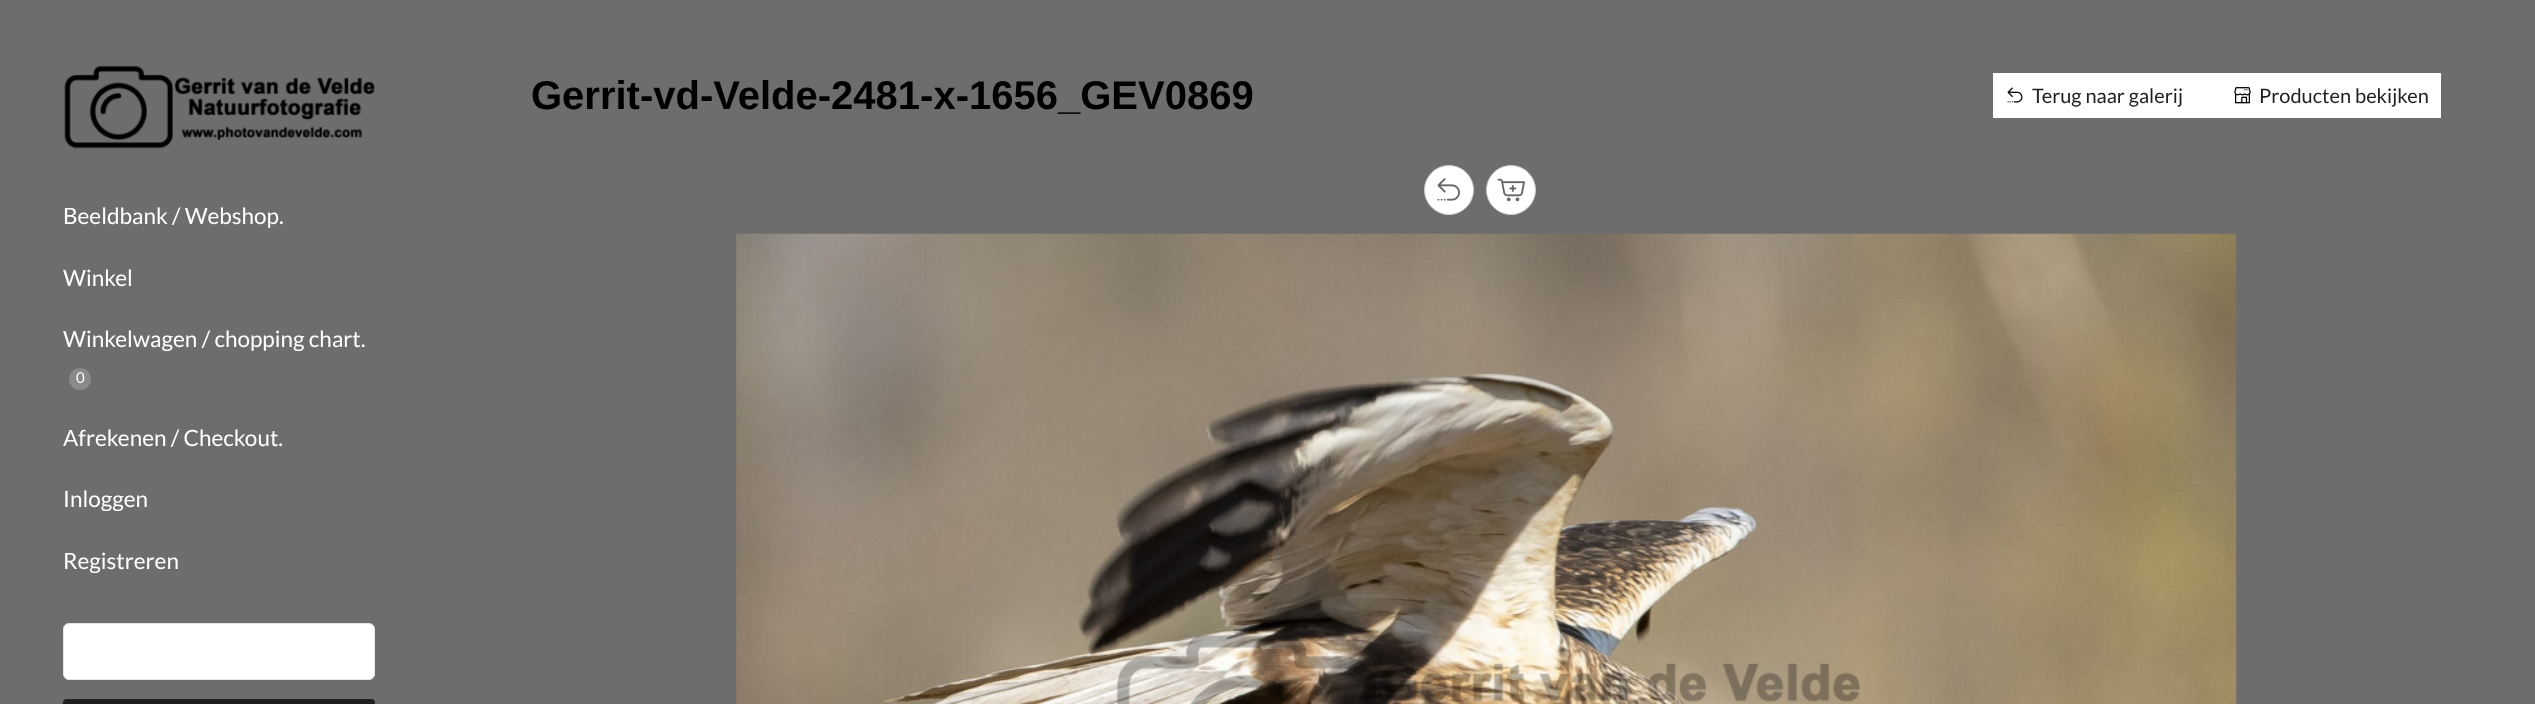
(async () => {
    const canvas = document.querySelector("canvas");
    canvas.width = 2535;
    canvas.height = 704;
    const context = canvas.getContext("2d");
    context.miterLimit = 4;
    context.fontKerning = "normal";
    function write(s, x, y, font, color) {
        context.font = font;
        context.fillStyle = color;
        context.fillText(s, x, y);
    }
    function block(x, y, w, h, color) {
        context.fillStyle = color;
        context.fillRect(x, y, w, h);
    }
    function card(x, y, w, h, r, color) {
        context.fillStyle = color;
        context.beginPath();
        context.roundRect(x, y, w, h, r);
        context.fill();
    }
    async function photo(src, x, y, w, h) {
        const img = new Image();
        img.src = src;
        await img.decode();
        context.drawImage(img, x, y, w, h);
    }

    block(0, 0, 2535, 704, "rgb(109, 109, 109)");
    write("Gerrit-vd-Velde-2481-x-1656_GEV0869", 531, 109, "bold 40px Liberation Sans", "rgb(0, 0, 0)");
    block(1993, 73, 448, 45, "rgb(255, 255, 255)");
    await photo("media/1.png", 2007, 87, 16, 16);
    write("Terug naar galerij", 2032, 103, "20px Lato", "rgb(31, 31, 31)");
    await photo("media/2.png", 2234, 87, 17, 17);
    write("Producten bekijken", 2259, 103, "20px Lato", "rgb(31, 31, 31)");
    context.fillStyle = "rgb(255, 255, 255)";
    context.beginPath();
    context.arc(1449, 190, 24.5, 0, Math.PI * 2);
    context.fill();
    context.strokeStyle = "rgb(204, 204, 204)";
    context.stroke();
    await photo("media/3.png", 1437, 178, 23, 23);
    context.beginPath();
    context.arc(1511, 190, 24.5, 0, Math.PI * 2);
    context.fill();
    context.stroke();
    await photo("media/4.png", 1497, 178, 28, 24);
    await photo("media/5.png", 736, 233, 1501, 471);
    await photo("media/6.png", 64, 65, 311, 84);
    write("Beeldbank / Webshop.", 63, 224, "22.5px Lato", "rgb(255, 255, 255)");
    write("Winkel", 63, 286, "22.5px Lato", "rgb(255, 255, 255)");
    write("Winkelwagen / chopping chart.", 63, 347, "22.5px Lato", "rgb(255, 255, 255)");
    context.fillStyle = "rgb(138, 138, 138)";
    context.beginPath();
    context.arc(80, 379, 11, 0, Math.PI * 2);
    context.fill();
    write("0", 76, 383, "15px Lato", "rgb(255, 255, 255)");
    write("Afrekenen / Checkout.", 63, 446, "22.5px Lato", "rgb(255, 255, 255)");
    write("Inloggen", 63, 507, "22.5px Lato", "rgb(255, 255, 255)");
    write("Registreren", 63, 569, "22.5px Lato", "rgb(255, 255, 255)");
    context.beginPath();
    context.roundRect(63.5, 623.5, 311, 56, 5.5);
    context.fill();
    context.strokeStyle = "rgb(230, 230, 230)";
    context.stroke();
    card(63, 699, 312, 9, 4, "rgb(31, 31, 31)");
})();
